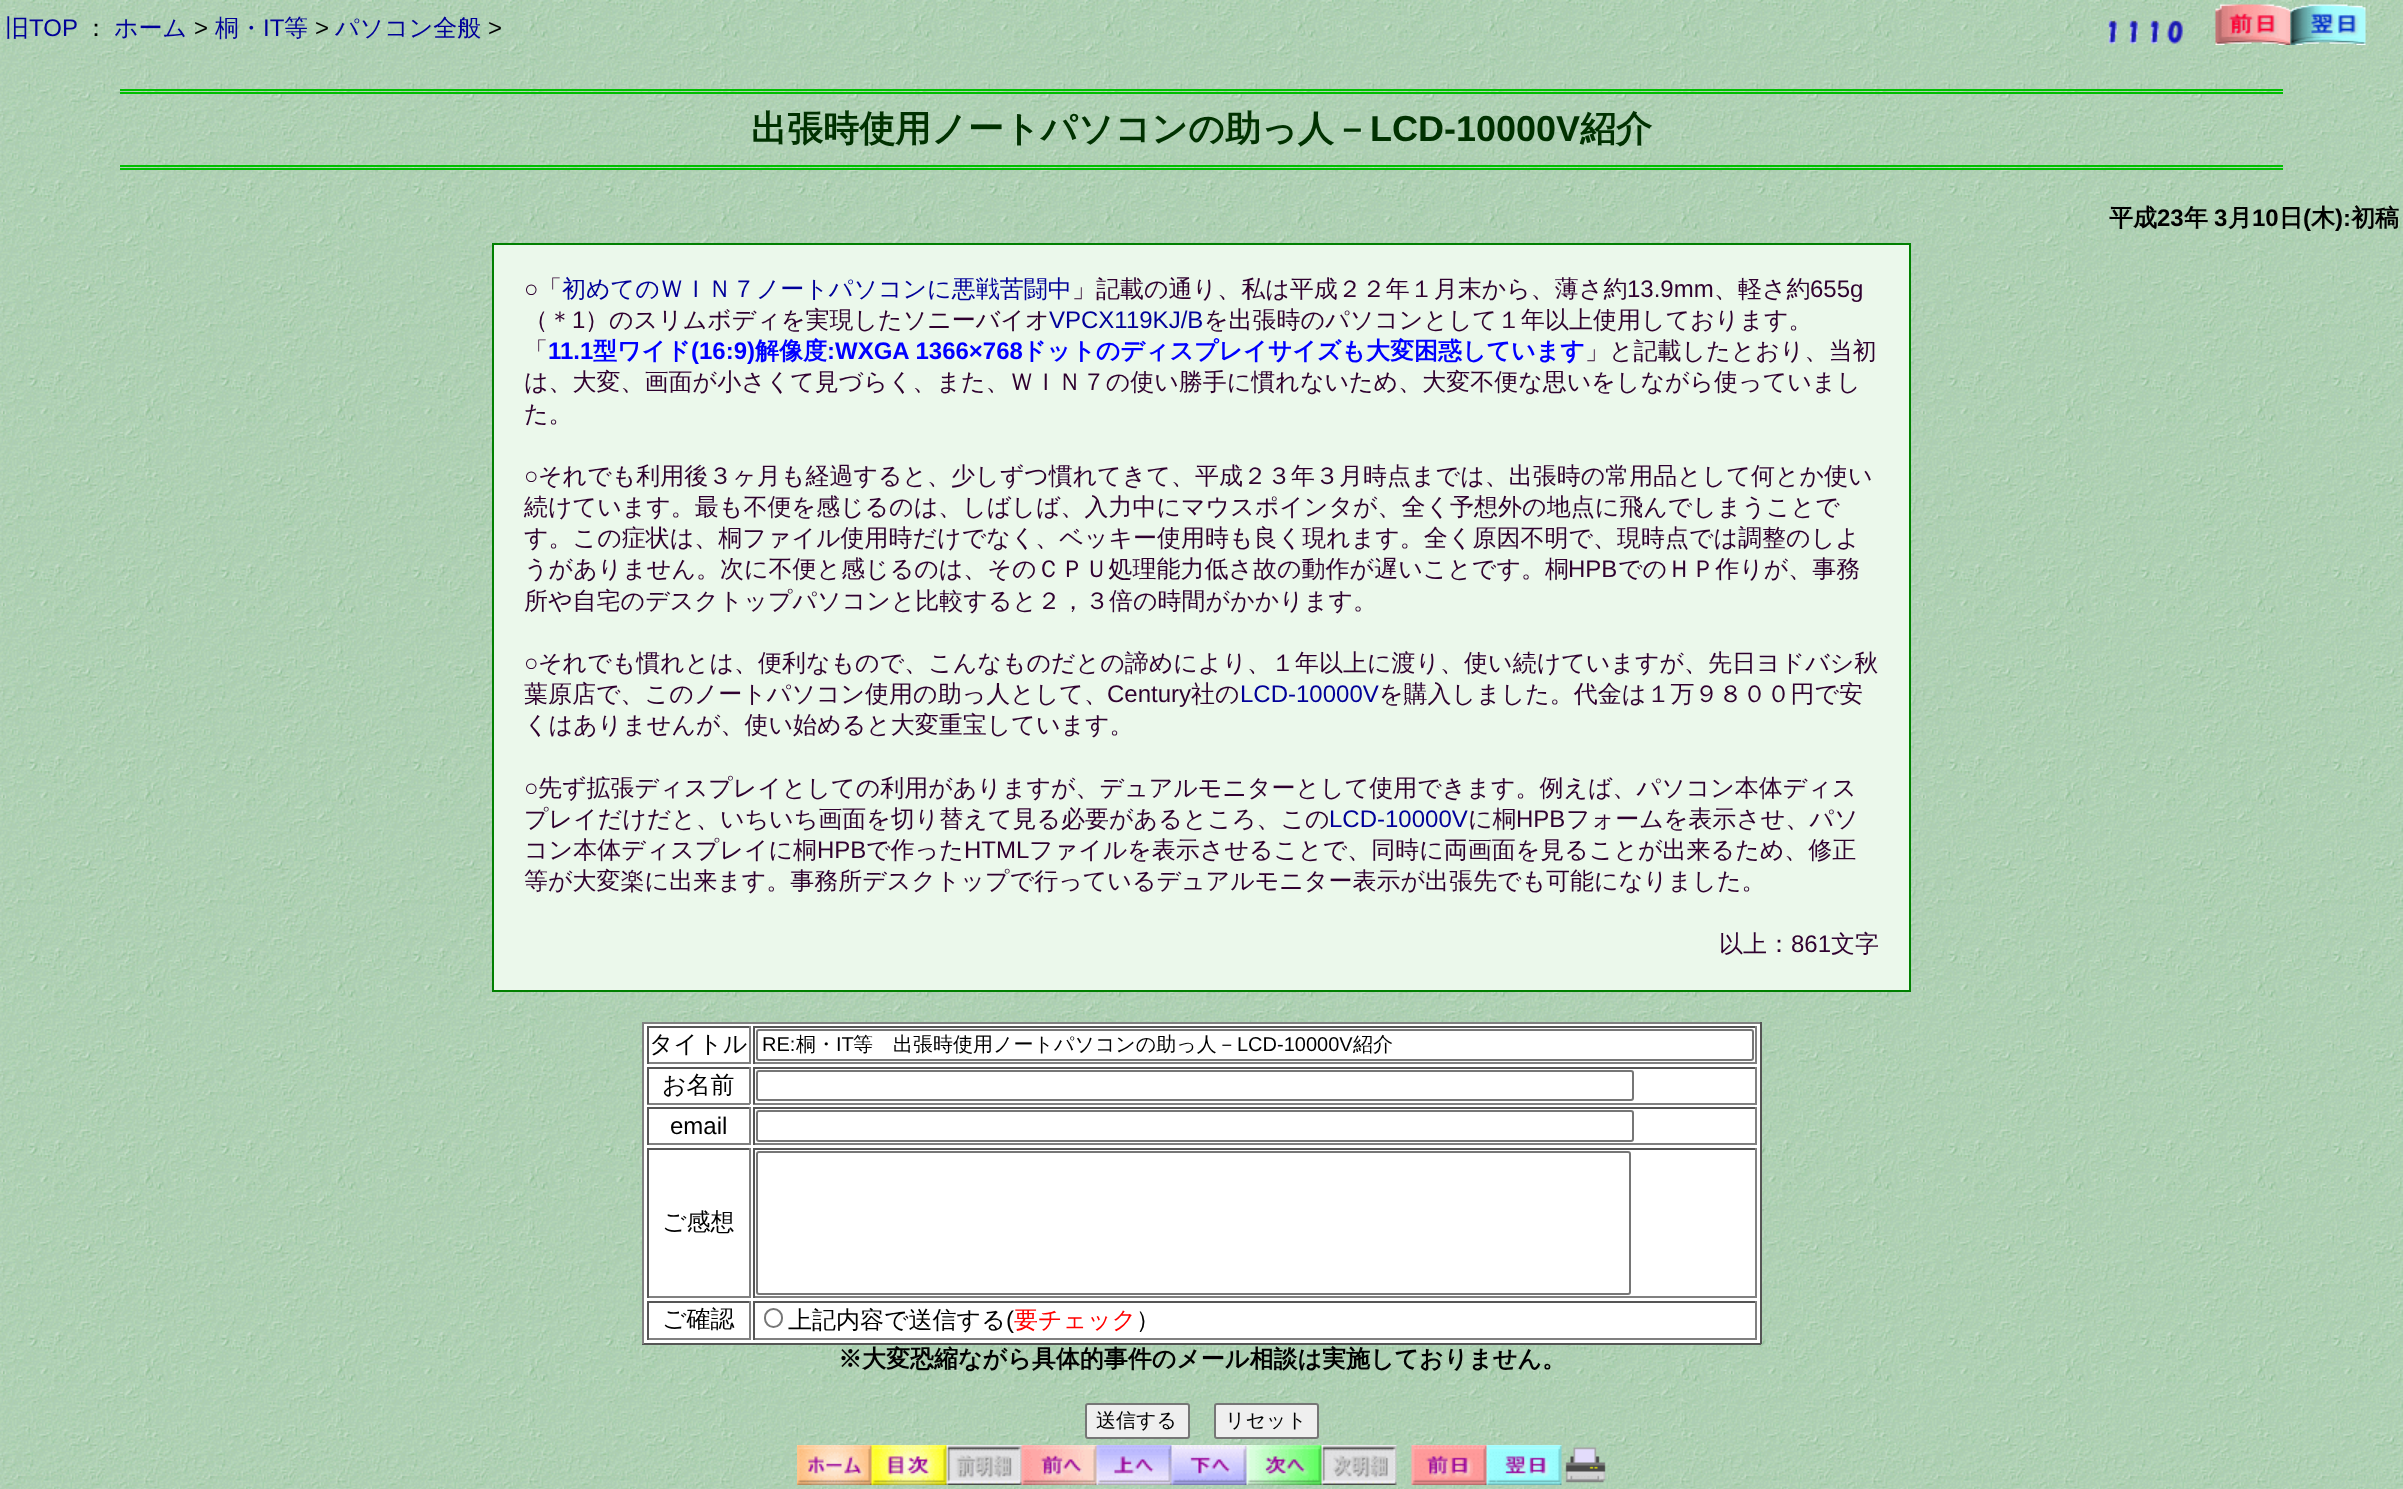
(async () => {
    const canvas = document.querySelector("canvas");
    canvas.width = 2403;
    canvas.height = 1489;
    const context = canvas.getContext("2d");
    context.miterLimit = 4;
    context.fontKerning = "normal";
    function write(s, x, y, font, color) {
        context.font = font;
        context.fillStyle = color;
        context.fillText(s, x, y);
    }
    function block(x, y, w, h, color) {
        context.fillStyle = color;
        context.fillRect(x, y, w, h);
    }
    async function photo(src, x, y, w, h) {
        const img = new Image();
        img.src = src;
        await img.decode();
        context.drawImage(img, x, y, w, h);
    }

    block(0, 0, 2403, 1489, "rgb(255, 255, 255)");
    await photo("media/1.png", 0, 0, 2403, 1489);
    write("旧", 5, 36, "500 24px WenQuanYi Zen Hei", "rgb(0, 0, 153)");
    write("TOP", 29, 36, "24px Liberation Sans", "rgb(0, 0, 153)");
    write("：", 84, 36, "500 24px WenQuanYi Zen Hei", "rgb(0, 0, 0)");
    write("ホーム", 114, 36, "500 24px WenQuanYi Zen Hei", "rgb(0, 0, 153)");
    write(">", 194, 36, "24px Liberation Sans", "rgb(0, 0, 0)");
    write("桐・", 215, 36, "500 24px WenQuanYi Zen Hei", "rgb(0, 0, 153)");
    write("IT", 263, 36, "24px Liberation Sans", "rgb(0, 0, 153)");
    write("等", 284, 36, "500 24px WenQuanYi Zen Hei", "rgb(0, 0, 153)");
    write(">", 315, 36, "24px Liberation Sans", "rgb(0, 0, 0)");
    write("パソコン全般", 335, 36, "500 24px WenQuanYi Zen Hei", "rgb(0, 0, 153)");
    write(">", 488, 36, "24px Liberation Sans", "rgb(0, 0, 0)");
    await photo("media/2.png", 2108, 20, 75, 24);
    await photo("media/3.png", 2215, 4, 76, 41);
    await photo("media/4.png", 2290, 4, 76, 41);
    block(120, 89, 2163, 2, "rgb(0, 191, 0)");
    block(120, 92, 2163, 2, "rgb(0, 191, 0)");
    block(120, 165, 2163, 2, "rgb(0, 191, 0)");
    block(120, 168, 2163, 2, "rgb(0, 191, 0)");
    write("出張時使用ノートパソコンの助っ人－", 751, 141, "bold 36px WenQuanYi Zen Hei", "rgb(0, 49, 0)");
    write("LCD-10000V", 1370, 141, "bold 36px Liberation Sans", "rgb(0, 49, 0)");
    write("紹介", 1580, 141, "bold 36px WenQuanYi Zen Hei", "rgb(0, 49, 0)");
    write("平成", 2109, 226, "bold 24px WenQuanYi Zen Hei", "rgb(0, 0, 0)");
    write("23", 2157, 226, "bold 24px Liberation Sans", "rgb(0, 0, 0)");
    write("年", 2184, 226, "bold 24px WenQuanYi Zen Hei", "rgb(0, 0, 0)");
    write("3", 2214, 226, "bold 24px Liberation Sans", "rgb(0, 0, 0)");
    write("月", 2228, 226, "bold 24px WenQuanYi Zen Hei", "rgb(0, 0, 0)");
    write("10", 2252, 226, "bold 24px Liberation Sans", "rgb(0, 0, 0)");
    write("日", 2279, 226, "bold 24px WenQuanYi Zen Hei", "rgb(0, 0, 0)");
    write("(", 2303, 226, "bold 24px Liberation Sans", "rgb(0, 0, 0)");
    write("木", 2311, 226, "bold 24px WenQuanYi Zen Hei", "rgb(0, 0, 0)");
    write("):", 2335, 226, "bold 24px Liberation Sans", "rgb(0, 0, 0)");
    write("初稿", 2351, 226, "bold 24px WenQuanYi Zen Hei", "rgb(0, 0, 0)");
    context.fillStyle = "rgb(235, 248, 235)";
    context.beginPath();
    context.rect(493, 244, 1417, 747);
    context.fill();
    context.strokeStyle = "rgb(0, 128, 0)";
    context.lineWidth = 2;
    context.stroke();
    write("○", 524, 297, "24px Liberation Sans", "rgb(47, 0, 47)");
    write("「", 538, 297, "500 24px WenQuanYi Zen Hei", "rgb(47, 0, 47)");
    write("初めてのＷＩＮ７ノートパソコンに悪戦苦闘中", 562, 297, "500 24px WenQuanYi Zen Hei", "rgb(0, 0, 153)");
    write("」記載の通り、私は平成２２年１月末から、薄さ約", 1072, 297, "500 24px WenQuanYi Zen Hei", "rgb(47, 0, 47)");
    write("13.9mm", 1627, 297, "24px Liberation Sans", "rgb(47, 0, 47)");
    write("、軽さ約", 1714, 297, "500 24px WenQuanYi Zen Hei", "rgb(47, 0, 47)");
    write("655g", 1810, 297, "24px Liberation Sans", "rgb(47, 0, 47)");
    write("（＊", 524, 328, "500 24px WenQuanYi Zen Hei", "rgb(47, 0, 47)");
    write("1", 572, 328, "24px Liberation Sans", "rgb(47, 0, 47)");
    write("）のスリムボディを実現したソニーバイオ", 585, 328, "500 24px WenQuanYi Zen Hei", "rgb(47, 0, 47)");
    write("VPCX119KJ/B", 1049, 328, "24px Liberation Sans", "rgb(0, 0, 153)");
    write("を出張時のパソコンとして１年以上使用しております。", 1204, 328, "500 24px WenQuanYi Zen Hei", "rgb(47, 0, 47)");
    write("「", 524, 359, "500 24px WenQuanYi Zen Hei", "rgb(47, 0, 47)");
    write("11.1", 548, 359, "bold 24px Liberation Sans", "rgb(0, 0, 255)");
    write("型ワイド", 593, 359, "bold 24px WenQuanYi Zen Hei", "rgb(0, 0, 255)");
    write("(16:9)", 691, 359, "bold 24px Liberation Sans", "rgb(0, 0, 255)");
    write("解像度", 755, 359, "bold 24px WenQuanYi Zen Hei", "rgb(0, 0, 255)");
    write(":WXGA 1366×768", 827, 359, "bold 24px Liberation Sans", "rgb(0, 0, 255)");
    write("ドットのディスプレイサイズも大変困惑しています", 1022, 359, "bold 24px WenQuanYi Zen Hei", "rgb(0, 0, 255)");
    write("」と記載したとおり、当初", 1585, 359, "500 24px WenQuanYi Zen Hei", "rgb(47, 0, 47)");
    write("は、大変、画面が小さくて見づらく、また、ＷＩＮ７の使い勝手に慣れないため、大変不便な思いをしながら使っていまし", 524, 390, "500 24px WenQuanYi Zen Hei", "rgb(47, 0, 47)");
    write("た。", 524, 422, "500 24px WenQuanYi Zen Hei", "rgb(47, 0, 47)");
    write("○", 524, 484, "24px Liberation Sans", "rgb(47, 0, 47)");
    write("それでも利用後３ヶ月も経過すると、少しずつ慣れてきて、平成２３年３月時点までは、出張時の常用品として何とか使い", 538, 484, "500 24px WenQuanYi Zen Hei", "rgb(47, 0, 47)");
    write("続けています。最も不便を感じるのは、しばしば、入力中にマウスポインタが、全く予想外の地点に飛んでしまうことで", 524, 515, "500 24px WenQuanYi Zen Hei", "rgb(47, 0, 47)");
    write("す。この症状は、桐ファイル使用時だけでなく、ベッキー使用時も良く現れます。全く原因不明で、現時点では調整のしよ", 524, 546, "500 24px WenQuanYi Zen Hei", "rgb(47, 0, 47)");
    write("うがありません。次に不便と感じるのは、そのＣＰＵ処理能力低さ故の動作が遅いことです。桐", 524, 577, "500 24px WenQuanYi Zen Hei", "rgb(47, 0, 47)");
    write("HPB", 1568, 577, "24px Liberation Sans", "rgb(47, 0, 47)");
    write("でのＨＰ作りが、事務", 1618, 577, "500 24px WenQuanYi Zen Hei", "rgb(47, 0, 47)");
    write("所や自宅のデスクトップパソコンと比較すると２，３倍の時間がかかります。", 524, 609, "500 24px WenQuanYi Zen Hei", "rgb(47, 0, 47)");
    write("○", 524, 671, "24px Liberation Sans", "rgb(47, 0, 47)");
    write("それでも慣れとは、便利なもので、こんなものだとの諦めにより、１年以上に渡り、使い続けていますが、先日ヨドバシ秋", 538, 671, "500 24px WenQuanYi Zen Hei", "rgb(47, 0, 47)");
    write("葉原店で、このノートパソコン使用の助っ人として、", 524, 702, "500 24px WenQuanYi Zen Hei", "rgb(47, 0, 47)");
    write("Century", 1107, 702, "24px Liberation Sans", "rgb(47, 0, 47)");
    write("社の", 1191, 702, "500 24px WenQuanYi Zen Hei", "rgb(47, 0, 47)");
    write("LCD-10000V", 1240, 702, "24px Liberation Sans", "rgb(0, 0, 153)");
    write("を購入しました。代金は１万９８００円で安", 1379, 702, "500 24px WenQuanYi Zen Hei", "rgb(47, 0, 47)");
    write("くはありませんが、使い始めると大変重宝しています。", 524, 733, "500 24px WenQuanYi Zen Hei", "rgb(47, 0, 47)");
    write("○", 524, 796, "24px Liberation Sans", "rgb(47, 0, 47)");
    write("先ず拡張ディスプレイとしての利用がありますが、デュアルモニターとして使用できます。例えば、パソコン本体ディス", 538, 796, "500 24px WenQuanYi Zen Hei", "rgb(47, 0, 47)");
    write("プレイだけだと、いちいち画面を切り替えて見る必要があるところ、この", 524, 827, "500 24px WenQuanYi Zen Hei", "rgb(47, 0, 47)");
    write("LCD-10000V", 1329, 827, "24px Liberation Sans", "rgb(0, 0, 153)");
    write("に桐", 1468, 827, "500 24px WenQuanYi Zen Hei", "rgb(47, 0, 47)");
    write("HPB", 1516, 827, "24px Liberation Sans", "rgb(47, 0, 47)");
    write("フォームを表示させ、パソ", 1566, 827, "500 24px WenQuanYi Zen Hei", "rgb(47, 0, 47)");
    write("コン本体ディスプレイに桐", 524, 858, "500 24px WenQuanYi Zen Hei", "rgb(47, 0, 47)");
    write("HPB", 817, 858, "24px Liberation Sans", "rgb(47, 0, 47)");
    write("で作った", 866, 858, "500 24px WenQuanYi Zen Hei", "rgb(47, 0, 47)");
    write("HTML", 964, 858, "24px Liberation Sans", "rgb(47, 0, 47)");
    write("ファイルを表示させることで、同時に両画面を見ることが出来るため、修正", 1029, 858, "500 24px WenQuanYi Zen Hei", "rgb(47, 0, 47)");
    write("等が大変楽に出来ます。事務所デスクトップで行っているデュアルモニター表示が出張先でも可能になりました。", 524, 889, "500 24px WenQuanYi Zen Hei", "rgb(47, 0, 47)");
    write("以上：", 1719, 952, "500 24px WenQuanYi Zen Hei", "rgb(47, 0, 47)");
    write("861", 1791, 952, "24px Liberation Sans", "rgb(47, 0, 47)");
    write("文字", 1831, 952, "500 24px WenQuanYi Zen Hei", "rgb(47, 0, 47)");
    block(644, 1024, 1116, 319, "rgb(255, 255, 255)");
    block(642, 1022, 1119, 2, "rgb(128, 128, 128)");
    block(1760, 1022, 2, 322, "rgb(85, 85, 85)");
    block(642, 1343, 1119, 2, "rgb(85, 85, 85)");
    block(642, 1022, 2, 322, "rgb(128, 128, 128)");
    block(647, 1026, 103, 2, "rgb(85, 85, 85)");
    block(749, 1026, 2, 38, "rgb(128, 128, 128)");
    block(647, 1062, 103, 2, "rgb(128, 128, 128)");
    block(647, 1026, 2, 38, "rgb(85, 85, 85)");
    write("タイトル", 649, 1052, "500 24px WenQuanYi Zen Hei", "rgb(0, 0, 0)");
    block(753, 1026, 1004, 2, "rgb(85, 85, 85)");
    block(1755, 1026, 2, 38, "rgb(128, 128, 128)");
    block(753, 1062, 1004, 2, "rgb(128, 128, 128)");
    block(753, 1026, 2, 38, "rgb(85, 85, 85)");
    context.beginPath();
    context.roundRect(757, 1030, 996, 30, 2);
    context.strokeStyle = "rgb(118, 118, 118)";
    context.stroke();
    write("RE:", 762, 1051, "20px Liberation Sans", "rgb(0, 0, 0)");
    write("桐・", 796, 1051, "500 20px WenQuanYi Zen Hei", "rgb(0, 0, 0)");
    write("IT", 836, 1051, "20px Liberation Sans", "rgb(0, 0, 0)");
    write("等　出張時使用ノートパソコンの助っ人－", 853, 1051, "500 20px WenQuanYi Zen Hei", "rgb(0, 0, 0)");
    write("LCD-10000V", 1237, 1051, "20px Liberation Sans", "rgb(0, 0, 0)");
    write("紹介", 1353, 1051, "500 20px WenQuanYi Zen Hei", "rgb(0, 0, 0)");
    block(647, 1067, 103, 2, "rgb(85, 85, 85)");
    block(749, 1067, 2, 37, "rgb(128, 128, 128)");
    block(647, 1103, 103, 2, "rgb(128, 128, 128)");
    block(647, 1067, 2, 37, "rgb(85, 85, 85)");
    write("お名前", 662, 1093, "500 24px WenQuanYi Zen Hei", "rgb(0, 0, 0)");
    block(753, 1067, 1004, 2, "rgb(85, 85, 85)");
    block(1755, 1067, 2, 37, "rgb(128, 128, 128)");
    block(753, 1103, 1004, 2, "rgb(128, 128, 128)");
    block(753, 1067, 2, 37, "rgb(85, 85, 85)");
    context.beginPath();
    context.roundRect(757, 1071, 876, 29, 2);
    context.stroke();
    block(647, 1107, 103, 2, "rgb(85, 85, 85)");
    block(749, 1107, 2, 38, "rgb(128, 128, 128)");
    block(647, 1143, 103, 2, "rgb(128, 128, 128)");
    block(647, 1107, 2, 38, "rgb(85, 85, 85)");
    write("email", 670, 1134, "24px Liberation Sans", "rgb(0, 0, 0)");
    block(753, 1107, 1004, 2, "rgb(85, 85, 85)");
    block(1755, 1107, 2, 38, "rgb(128, 128, 128)");
    block(753, 1143, 1004, 2, "rgb(128, 128, 128)");
    block(753, 1107, 2, 38, "rgb(85, 85, 85)");
    context.beginPath();
    context.roundRect(757, 1111, 876, 30, 2);
    context.stroke();
    block(647, 1148, 103, 2, "rgb(85, 85, 85)");
    block(749, 1148, 2, 150, "rgb(128, 128, 128)");
    block(647, 1296, 103, 2, "rgb(128, 128, 128)");
    block(647, 1148, 2, 150, "rgb(85, 85, 85)");
    write("ご感想", 662, 1230, "500 24px WenQuanYi Zen Hei", "rgb(0, 0, 0)");
    block(753, 1148, 1004, 2, "rgb(85, 85, 85)");
    block(1755, 1148, 2, 150, "rgb(128, 128, 128)");
    block(753, 1296, 1004, 2, "rgb(128, 128, 128)");
    block(753, 1148, 2, 150, "rgb(85, 85, 85)");
    context.beginPath();
    context.roundRect(757, 1152, 873, 142, 2);
    context.stroke();
    block(647, 1301, 103, 2, "rgb(85, 85, 85)");
    block(749, 1301, 2, 39, "rgb(128, 128, 128)");
    block(647, 1338, 103, 2, "rgb(128, 128, 128)");
    block(647, 1301, 2, 39, "rgb(85, 85, 85)");
    write("ご確認", 662, 1327, "500 24px WenQuanYi Zen Hei", "rgb(0, 0, 0)");
    block(753, 1301, 1004, 2, "rgb(85, 85, 85)");
    block(1755, 1301, 2, 39, "rgb(128, 128, 128)");
    block(753, 1338, 1004, 2, "rgb(128, 128, 128)");
    block(753, 1301, 2, 39, "rgb(85, 85, 85)");
    context.beginPath();
    context.roundRect(765, 1309, 17, 18, 8.5);
    context.stroke();
    write("上記内容で送信する", 788, 1328, "500 24px WenQuanYi Zen Hei", "rgb(0, 0, 0)");
    write("(", 1006, 1328, "24px Liberation Sans", "rgb(0, 0, 0)");
    write("要チェック", 1014, 1328, "500 24px WenQuanYi Zen Hei", "rgb(255, 0, 0)");
    write("）", 1136, 1328, "500 24px WenQuanYi Zen Hei", "rgb(0, 0, 0)");
    write("※大変恐縮ながら具体的事件のメール相談は実施しておりません。", 838, 1367, "bold 24px WenQuanYi Zen Hei", "rgb(0, 0, 0)");
    context.fillStyle = "rgb(239, 239, 239)";
    context.beginPath();
    context.roundRect(1086, 1404, 103, 34, 2);
    context.fill();
    context.stroke();
    write("送信する", 1096, 1427, "500 20px WenQuanYi Zen Hei", "rgb(0, 0, 0)");
    context.fillStyle = "rgb(239, 239, 239)";
    context.beginPath();
    context.roundRect(1215, 1404, 103, 34, 2);
    context.fill();
    context.stroke();
    write("リセット", 1225, 1427, "500 20px WenQuanYi Zen Hei", "rgb(0, 0, 0)");
    await photo("media/5.png", 797, 1445, 809, 40);
})();
